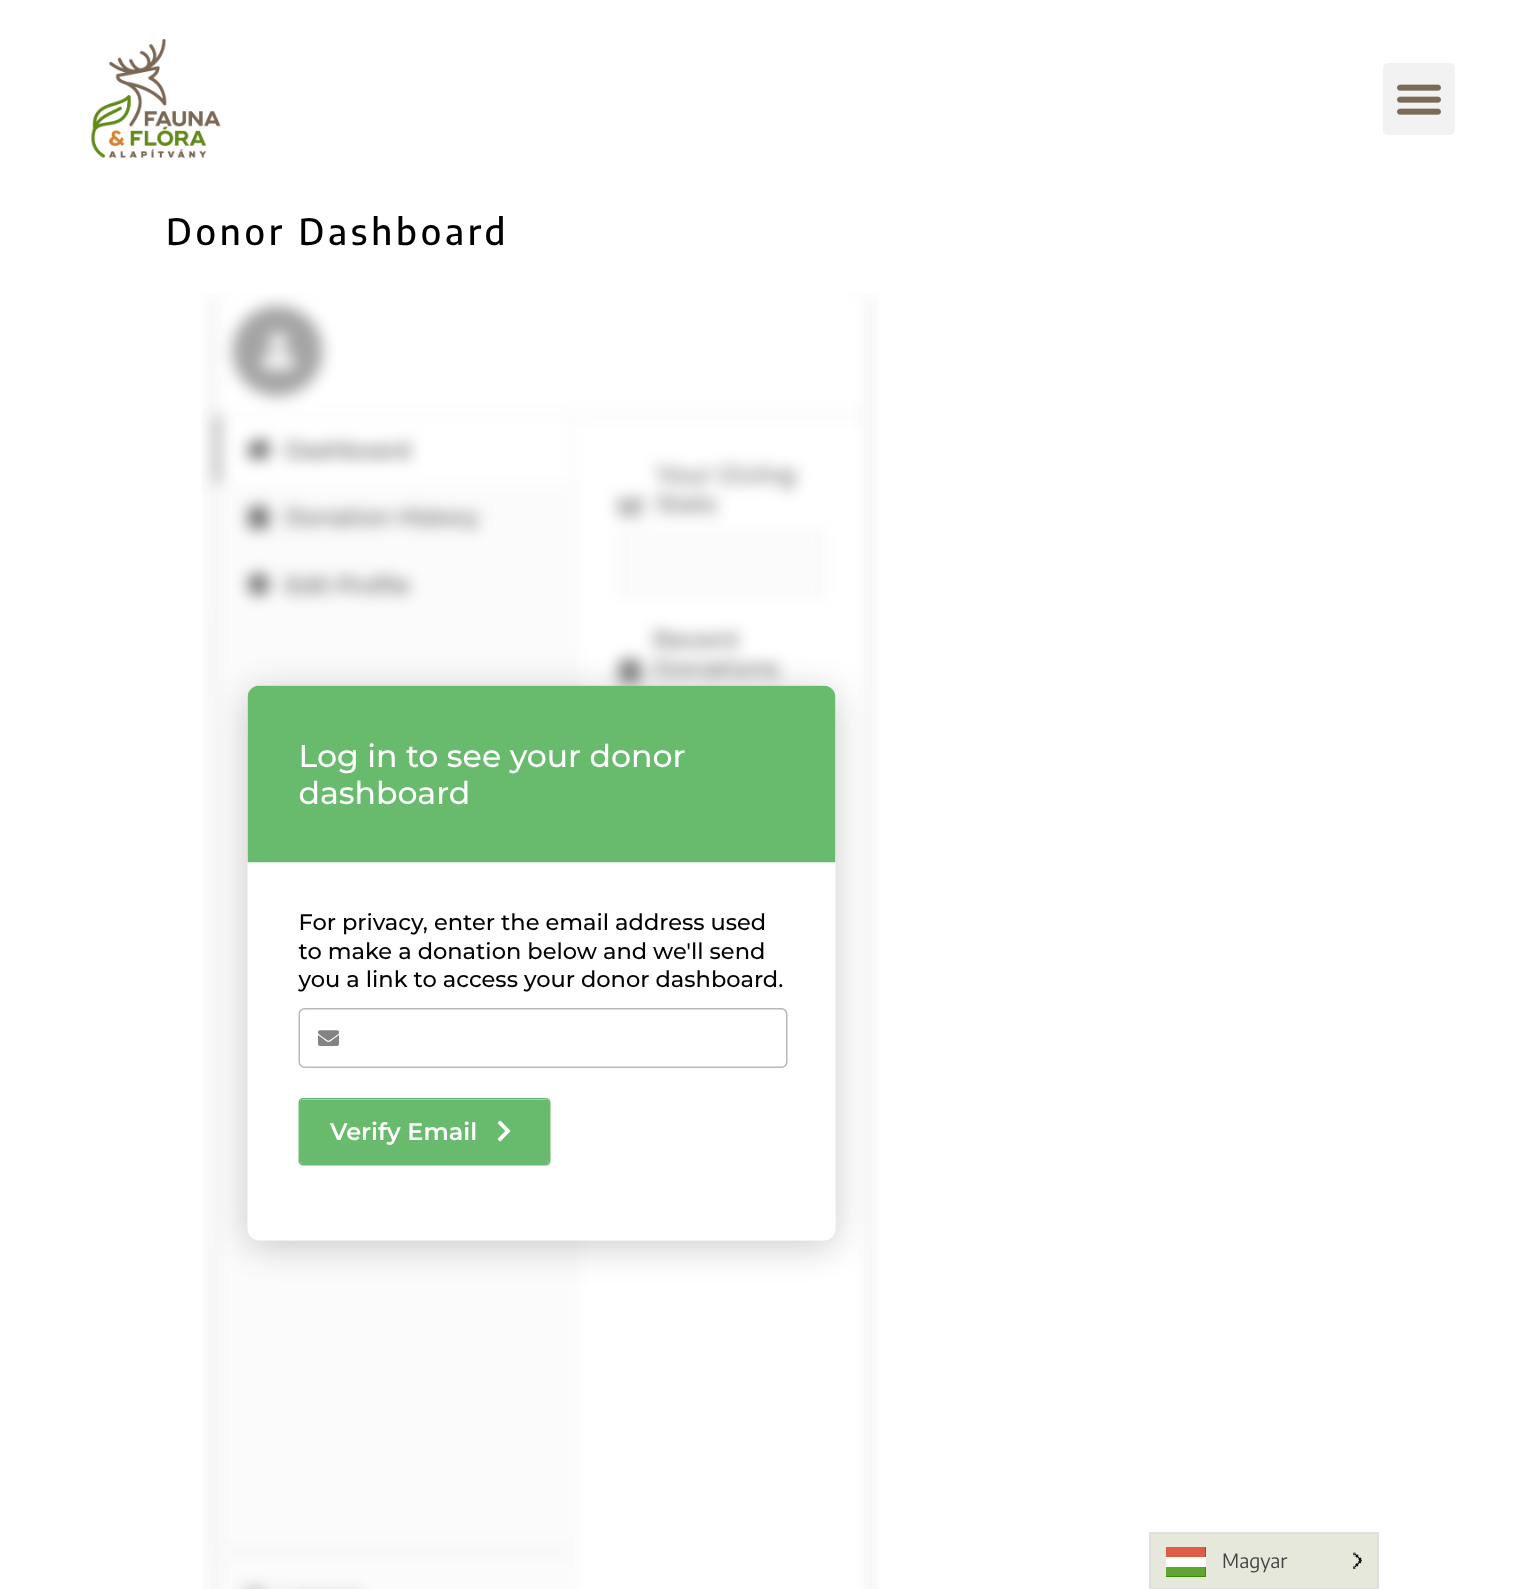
(async () => {
    const canvas = document.querySelector("canvas");
    canvas.width = 1531;
    canvas.height = 1589;
    const context = canvas.getContext("2d");
    context.miterLimit = 4;
    context.fontKerning = "normal";
    function write(s, x, y, font, color) {
        context.font = font;
        context.fillStyle = color;
        context.fillText(s, x, y);
    }
    function block(x, y, w, h, color) {
        context.fillStyle = color;
        context.fillRect(x, y, w, h);
    }
    function card(x, y, w, h, r, color) {
        context.fillStyle = color;
        context.beginPath();
        context.roundRect(x, y, w, h, r);
        context.fill();
    }
    async function photo(src, x, y, w, h) {
        const img = new Image();
        img.src = src;
        await img.decode();
        context.drawImage(img, x, y, w, h);
    }

    block(0, 0, 1531, 1589, "rgb(255, 255, 255)");
    await photo("media/1.png", 91, 39, 130, 119);
    card(1383, 63, 72, 72, 5, "rgb(242, 242, 242)");
    await photo("media/2.png", 1397, 84, 44, 31);
    context.letterSpacing = "3.75px";
    write("Donor Dashboard", 166, 245, "500 36px Encode Sans Condensed", "rgb(0, 0, 0)");
    await photo("media/3.png", 201, 293, 678, 1296);
    context.fillStyle = "rgb(231, 232, 220)";
    context.beginPath();
    context.rect(1150, 1533, 228, 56);
    context.fill();
    context.strokeStyle = "rgb(224, 224, 224)";
    context.lineWidth = 2;
    context.stroke();
    block(1166, 1557, 40, 10, "rgb(255, 255, 255)");
    block(1166, 1567, 40, 10, "rgb(56, 141, 0)");
    block(1166, 1567, 39, 9, "rgb(96, 164, 51)");
    block(1205, 1547, 1, 10, "rgb(212, 53, 22)");
    block(1166, 1547, 39, 10, "rgb(221, 93, 69)");
    context.letterSpacing = "0px";
    write("Magyar", 1222, 1568, "19.5px Encode Sans Condensed", "rgb(69, 69, 69)");
    await photo("media/4.png", 1353, 1552, 9, 17);
})();
